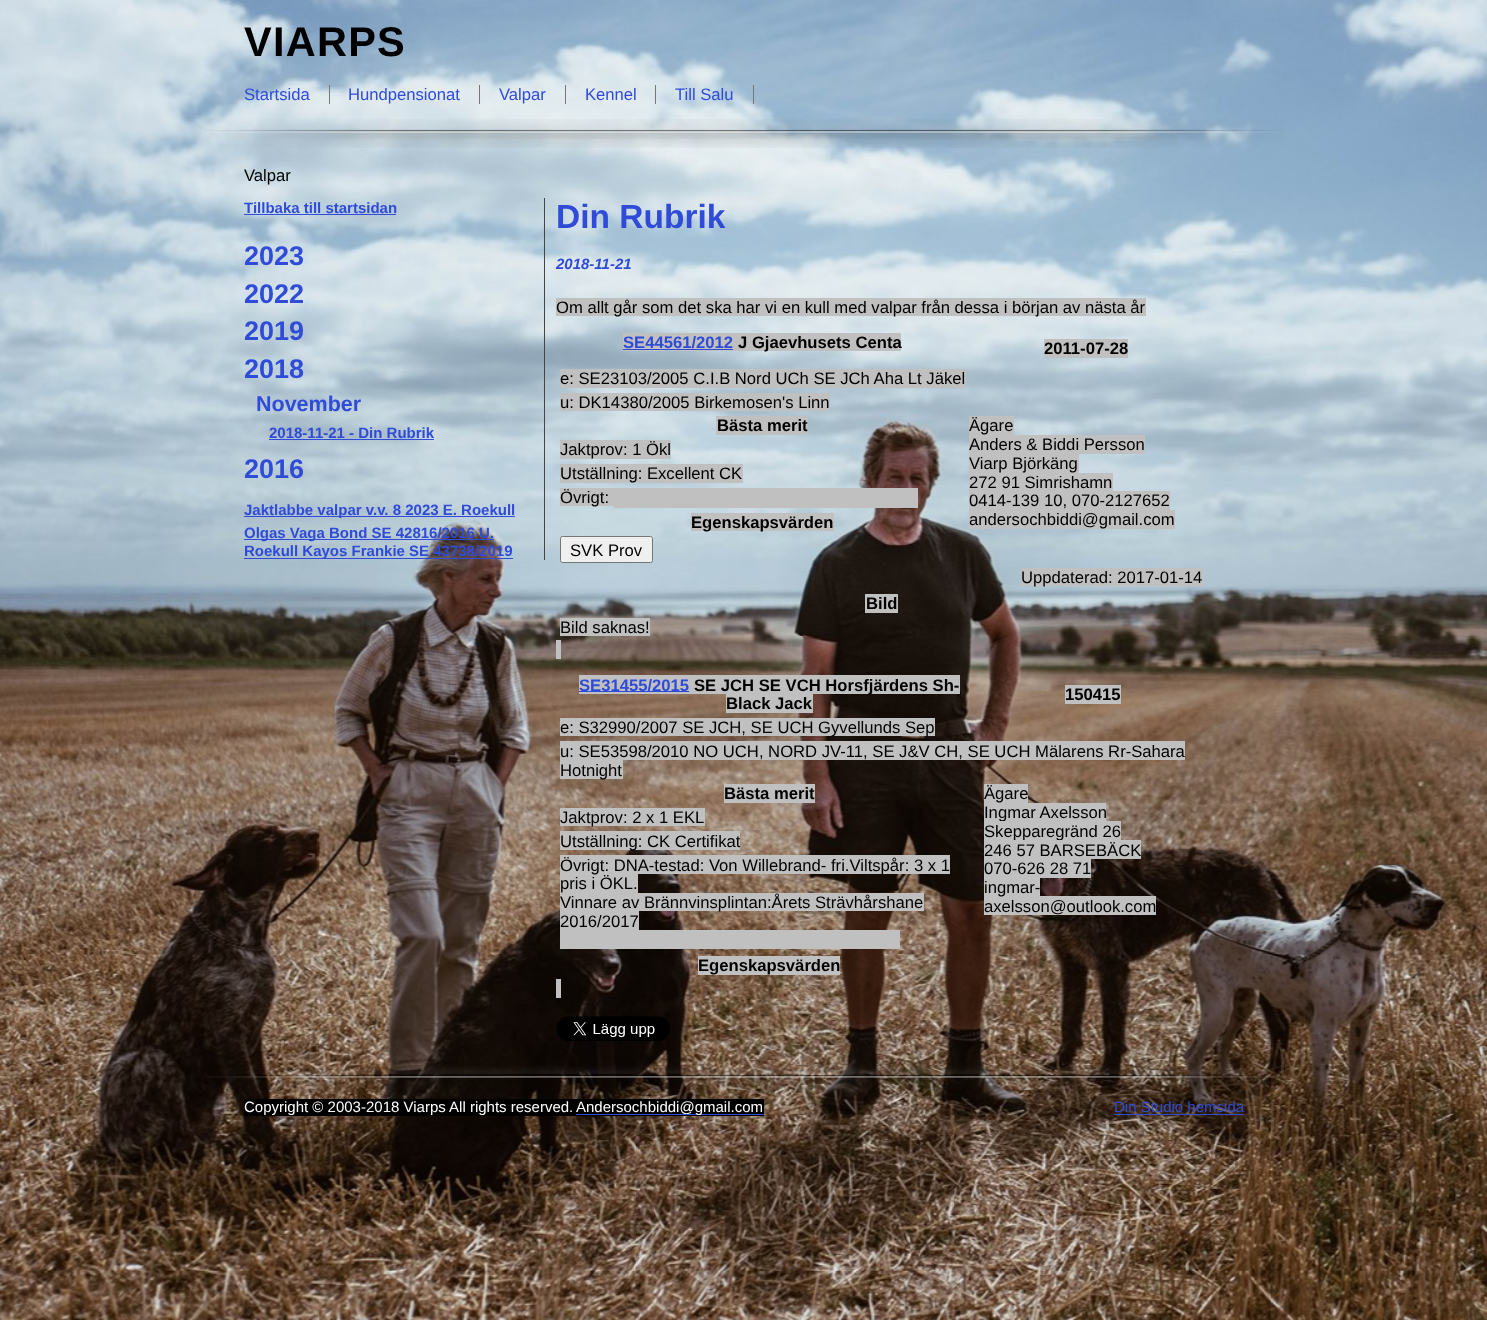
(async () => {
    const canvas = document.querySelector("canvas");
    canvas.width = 1487;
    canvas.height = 1320;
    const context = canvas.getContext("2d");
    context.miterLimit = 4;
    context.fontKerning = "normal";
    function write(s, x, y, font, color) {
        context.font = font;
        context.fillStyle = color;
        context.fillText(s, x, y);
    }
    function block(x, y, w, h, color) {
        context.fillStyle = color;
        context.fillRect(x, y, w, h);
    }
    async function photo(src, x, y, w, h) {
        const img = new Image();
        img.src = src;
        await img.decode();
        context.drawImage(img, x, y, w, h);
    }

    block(0, 0, 1487, 1320, "rgb(255, 255, 255)");
    await photo("media/1.png", 0, 0, 1487, 1320);
    context.letterSpacing = "1.25px";
    write("VIARPS", 244, 56, "bold 41.5px Liberation Sans", "rgb(0, 0, 0)");
    await photo("media/2.png", 204, 119, 1080, 29);
    block(329, 85, 1, 19, "rgb(119, 119, 119)");
    context.letterSpacing = "0px";
    write("Startsida", 244, 100, "16.65px Liberation Sans", "rgb(47, 75, 216)");
    block(479, 85, 1, 19, "rgb(119, 119, 119)");
    write("Hundpensionat", 348, 100, "16.65px Liberation Sans", "rgb(47, 75, 216)");
    block(565, 85, 1, 19, "rgb(119, 119, 119)");
    write("Valpar", 499, 100, "16.65px Liberation Sans", "rgb(47, 75, 216)");
    block(655, 85, 1, 19, "rgb(119, 119, 119)");
    write("Kennel", 585, 100, "16.65px Liberation Sans", "rgb(47, 75, 216)");
    block(753, 85, 1, 19, "rgb(119, 119, 119)");
    write("Till Salu", 675, 100, "16.65px Liberation Sans", "rgb(47, 75, 216)");
    write("Valpar", 244, 181, "16.65px Liberation Sans", "rgb(0, 0, 0)");
    block(544, 198, 1, 362, "rgb(69, 69, 69)");
    write("Tillbaka till startsidan", 244, 213, "bold 15px Liberation Sans", "rgb(47, 75, 216)");
    block(244, 214, 152, 1, "rgb(47, 75, 216)");
    write("2023", 244, 265, "bold 27px Liberation Sans", "rgb(47, 75, 216)");
    write("2022", 244, 303, "bold 27px Liberation Sans", "rgb(47, 75, 216)");
    write("2019", 244, 340, "bold 27px Liberation Sans", "rgb(47, 75, 216)");
    write("2018", 244, 378, "bold 27px Liberation Sans", "rgb(47, 75, 216)");
    write("November", 256, 411, "bold 21.5px Liberation Sans", "rgb(47, 75, 216)");
    write("2018-11-21 - Din Rubrik", 269, 438, "bold 15px Liberation Sans", "rgb(47, 75, 216)");
    block(269, 439, 165, 1, "rgb(47, 75, 216)");
    write("2016", 244, 478, "bold 27px Liberation Sans", "rgb(47, 75, 216)");
    block(244, 516, 271, 1, "rgb(47, 75, 216)");
    write("Jaktlabbe valpar v.v. 8 2023 E. Roekull", 244, 515, "bold 15px Liberation Sans", "rgb(47, 75, 216)");
    block(244, 539, 250, 1, "rgb(47, 75, 216)");
    write("Olgas Vaga Bond SE 42816/2016 U.", 244, 538, "bold 15px Liberation Sans", "rgb(47, 75, 216)");
    block(244, 558, 269, 1, "rgb(47, 75, 216)");
    write("Roekull Kayos Frankie SE 43738/2019", 244, 556, "bold 15px Liberation Sans", "rgb(47, 75, 216)");
    write("Din Rubrik", 556, 228, "bold 33.5px Liberation Sans", "rgb(47, 75, 216)");
    write("2018-11-21", 556, 269, "italic bold 15px Liberation Sans", "rgb(47, 75, 216)");
    block(556, 298, 590, 18, "rgb(192, 192, 192)");
    write("Om allt går som det ska har vi en kull med valpar från dessa i början av nästa år", 556, 313, "16.65px Liberation Sans", "rgb(0, 0, 0)");
    block(623, 333, 278, 18, "rgb(192, 192, 192)");
    write("SE44561/2012", 623, 348, "bold 16.65px Liberation Sans", "rgb(47, 75, 216)");
    block(623, 349, 110, 1, "rgb(47, 75, 216)");
    write("J Gjaevhusets Centa", 738, 348, "bold 16.65px Liberation Sans", "rgb(0, 0, 0)");
    block(1044, 339, 84, 19, "rgb(192, 192, 192)");
    write("2011-07-28", 1044, 354, "bold 16.65px Liberation Sans", "rgb(0, 0, 0)");
    block(560, 369, 406, 19, "rgb(192, 192, 192)");
    write("e: SE23103/2005 C.I.B Nord UCh SE JCh Aha Lt Jäkel", 560, 384, "16.65px Liberation Sans", "rgb(0, 0, 0)");
    block(560, 393, 270, 18, "rgb(192, 192, 192)");
    write("u: DK14380/2005 Birkemosen's Linn", 560, 408, "16.65px Liberation Sans", "rgb(0, 0, 0)");
    block(560, 440, 111, 19, "rgb(192, 192, 192)");
    write("Jaktprov: 1 Ökl", 560, 455, "16.65px Liberation Sans", "rgb(0, 0, 0)");
    block(716, 416, 92, 19, "rgb(192, 192, 192)");
    write("Bästa merit", 717, 431, "bold 16.65px Liberation Sans", "rgb(0, 0, 0)");
    block(969, 416, 45, 19, "rgb(192, 192, 192)");
    write("Ägare", 969, 431, "16.65px Liberation Sans", "rgb(0, 0, 0)");
    block(969, 435, 176, 19, "rgb(192, 192, 192)");
    write("Anders & Biddi Persson", 969, 450, "16.65px Liberation Sans", "rgb(0, 0, 0)");
    block(969, 454, 110, 19, "rgb(192, 192, 192)");
    write("Viarp Björkäng", 969, 469, "16.65px Liberation Sans", "rgb(0, 0, 0)");
    block(969, 473, 144, 18, "rgb(192, 192, 192)");
    write("272 91 Simrishamn", 969, 488, "16.65px Liberation Sans", "rgb(0, 0, 0)");
    block(969, 491, 201, 19, "rgb(192, 192, 192)");
    write("0414-139 10, 070-2127652", 969, 506, "16.65px Liberation Sans", "rgb(0, 0, 0)");
    block(969, 510, 206, 19, "rgb(192, 192, 192)");
    write("andersochbiddi@gmail.com", 969, 525, "16.65px Liberation Sans", "rgb(0, 0, 0)");
    block(560, 464, 183, 19, "rgb(192, 192, 192)");
    write("Utställning: Excellent CK", 560, 479, "16.65px Liberation Sans", "rgb(0, 0, 0)");
    block(560, 488, 54, 18, "rgb(192, 192, 192)");
    write("Övrigt:", 560, 503, "16.65px Liberation Sans", "rgb(0, 0, 0)");
    block(614, 488, 304, 20, "rgb(192, 192, 192)");
    block(691, 513, 143, 18, "rgb(192, 192, 192)");
    write("Egenskapsvärden", 691, 528, "bold 16.65px Liberation Sans", "rgb(0, 0, 0)");
    context.fillStyle = "rgb(239, 239, 239)";
    context.beginPath();
    context.roundRect(560.5, 536.5, 92, 26, 2);
    context.fill();
    context.strokeStyle = "rgb(118, 118, 118)";
    context.stroke();
    write("SVK Prov", 570, 556, "16.65px Liberation Sans", "rgb(0, 0, 0)");
    block(1021, 568, 182, 18, "rgb(192, 192, 192)");
    write("Uppdaterad: 2017-01-14", 1021, 583, "16.65px Liberation Sans", "rgb(0, 0, 0)");
    block(865, 594, 33, 19, "rgb(192, 192, 192)");
    write("Bild", 866, 609, "bold 16.65px Liberation Sans", "rgb(0, 0, 0)");
    block(560, 618, 90, 18, "rgb(192, 192, 192)");
    write("Bild saknas!", 560, 633, "16.65px Liberation Sans", "rgb(0, 0, 0)");
    block(556, 640, 5, 19, "rgb(192, 192, 192)");
    block(579, 675, 381, 19, "rgb(192, 192, 192)");
    block(579, 691, 110, 1, "rgb(47, 75, 216)");
    write("SE31455/2015", 579, 691, "bold 16.65px Liberation Sans", "rgb(47, 75, 216)");
    block(726, 694, 87, 19, "rgb(192, 192, 192)");
    write("SE JCH SE VCH Horsfjärdens Sh-", 694, 691, "bold 16.65px Liberation Sans", "rgb(0, 0, 0)");
    write("Black Jack", 726, 709, "bold 16.65px Liberation Sans", "rgb(0, 0, 0)");
    block(1065, 685, 56, 19, "rgb(192, 192, 192)");
    write("150415", 1065, 700, "bold 16.65px Liberation Sans", "rgb(0, 0, 0)");
    block(560, 718, 375, 18, "rgb(192, 192, 192)");
    write("e: S32990/2007 SE JCH, SE UCH Gyvellunds Sep", 560, 733, "16.65px Liberation Sans", "rgb(0, 0, 0)");
    block(560, 741, 625, 19, "rgb(192, 192, 192)");
    write("u: SE53598/2010 NO UCH, NORD JV-11, SE J&V CH, SE UCH Mälarens Rr-Sahara", 560, 757, "16.65px Liberation Sans", "rgb(0, 0, 0)");
    block(560, 760, 63, 19, "rgb(192, 192, 192)");
    write("Hotnight", 560, 776, "16.65px Liberation Sans", "rgb(0, 0, 0)");
    block(560, 808, 145, 18, "rgb(192, 192, 192)");
    write("Jaktprov: 2 x 1 EKL", 560, 823, "16.65px Liberation Sans", "rgb(0, 0, 0)");
    block(724, 784, 91, 19, "rgb(192, 192, 192)");
    write("Bästa merit", 724, 799, "bold 16.65px Liberation Sans", "rgb(0, 0, 0)");
    block(984, 784, 44, 19, "rgb(192, 192, 192)");
    write("Ägare", 984, 799, "16.65px Liberation Sans", "rgb(0, 0, 0)");
    block(984, 803, 122, 18, "rgb(192, 192, 192)");
    write("Ingmar Axelsson", 984, 818, "16.65px Liberation Sans", "rgb(0, 0, 0)");
    block(984, 821, 137, 19, "rgb(192, 192, 192)");
    write("Skepparegränd 26", 984, 837, "16.65px Liberation Sans", "rgb(0, 0, 0)");
    block(984, 840, 157, 19, "rgb(192, 192, 192)");
    write("246 57 BARSEBÄCK", 984, 856, "16.65px Liberation Sans", "rgb(0, 0, 0)");
    block(984, 859, 107, 19, "rgb(192, 192, 192)");
    write("070-626 28 71", 984, 874, "16.65px Liberation Sans", "rgb(0, 0, 0)");
    block(984, 878, 56, 18, "rgb(192, 192, 192)");
    block(984, 896, 172, 19, "rgb(192, 192, 192)");
    write("ingmar-", 984, 893, "16.65px Liberation Sans", "rgb(0, 0, 0)");
    write("axelsson@outlook.com", 984, 912, "16.65px Liberation Sans", "rgb(0, 0, 0)");
    block(560, 831, 180, 19, "rgb(192, 192, 192)");
    write("Utställning: CK Certifikat", 560, 847, "16.65px Liberation Sans", "rgb(0, 0, 0)");
    block(560, 855, 390, 19, "rgb(192, 192, 192)");
    block(560, 874, 78, 19, "rgb(192, 192, 192)");
    write("Övrigt: DNA-testad: Von Willebrand- fri.Viltspår: 3 x 1", 560, 871, "16.65px Liberation Sans", "rgb(0, 0, 0)");
    write("pris i ÖKL.", 560, 889, "16.65px Liberation Sans", "rgb(0, 0, 0)");
    block(560, 893, 364, 18, "rgb(192, 192, 192)");
    block(560, 911, 79, 19, "rgb(192, 192, 192)");
    write("Vinnare av Brännvinsplintan:Årets Strävhårshane", 560, 908, "16.65px Liberation Sans", "rgb(0, 0, 0)");
    write("2016/2017", 560, 927, "16.65px Liberation Sans", "rgb(0, 0, 0)");
    block(560, 930, 340, 19, "rgb(192, 192, 192)");
    block(698, 956, 142, 19, "rgb(192, 192, 192)");
    write("Egenskapsvärden", 698, 971, "bold 16.65px Liberation Sans", "rgb(0, 0, 0)");
    block(556, 979, 5, 19, "rgb(192, 192, 192)");
    await photo("media/3.png", 556, 1016, 114, 25);
    await photo("media/4.png", 206, 1066, 1075, 27);
    block(244, 1099, 520, 17, "rgb(0, 0, 0)");
    write("Copyright © 2003-2018 Viarps All rights reserved.", 244, 1112, "15px Liberation Sans", "rgb(255, 255, 255)");
    block(576, 1114, 188, 1, "rgb(47, 75, 216)");
    write("Andersochbiddi@gmail.com", 576, 1112, "15px Liberation Sans", "rgb(255, 255, 255)");
    write("Din Studio hemsida", 1114, 1112, "15px Liberation Sans", "rgb(47, 75, 216)");
    block(1114, 1114, 130, 1, "rgb(47, 75, 216)");
})();
